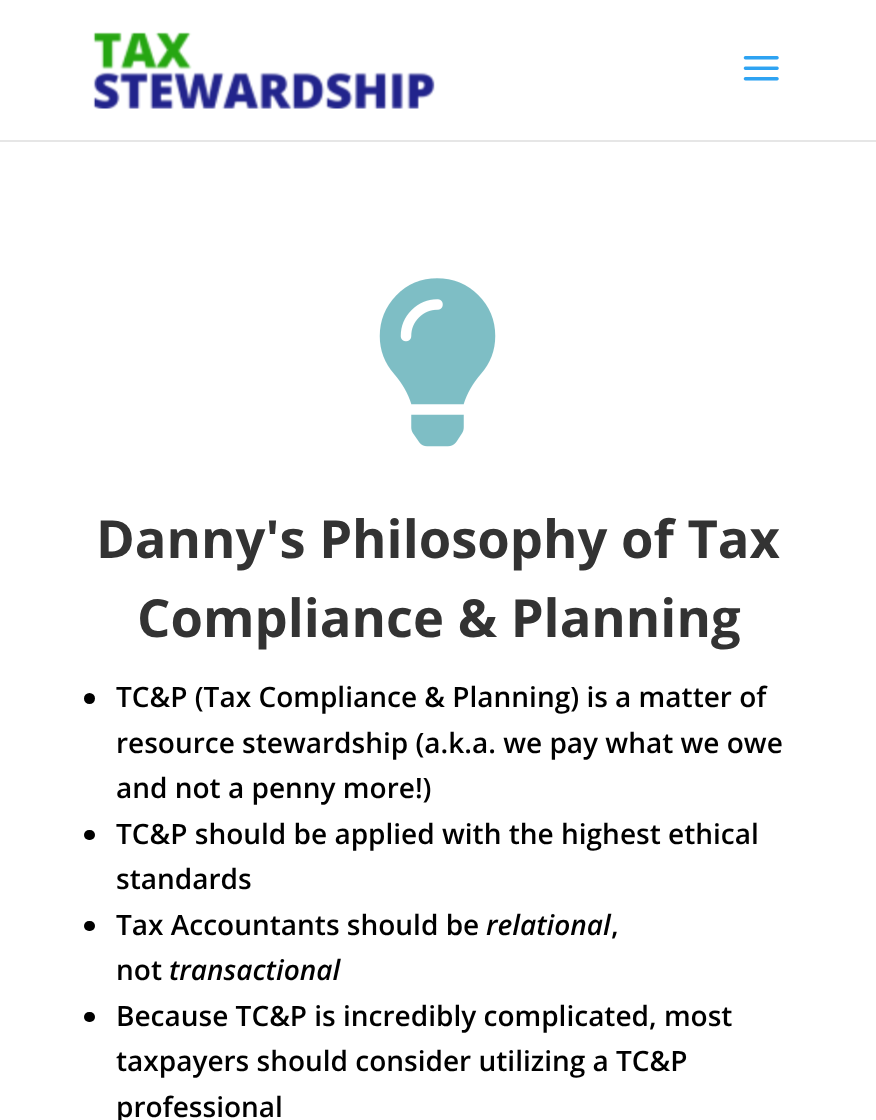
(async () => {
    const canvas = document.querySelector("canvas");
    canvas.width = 876;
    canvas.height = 1120;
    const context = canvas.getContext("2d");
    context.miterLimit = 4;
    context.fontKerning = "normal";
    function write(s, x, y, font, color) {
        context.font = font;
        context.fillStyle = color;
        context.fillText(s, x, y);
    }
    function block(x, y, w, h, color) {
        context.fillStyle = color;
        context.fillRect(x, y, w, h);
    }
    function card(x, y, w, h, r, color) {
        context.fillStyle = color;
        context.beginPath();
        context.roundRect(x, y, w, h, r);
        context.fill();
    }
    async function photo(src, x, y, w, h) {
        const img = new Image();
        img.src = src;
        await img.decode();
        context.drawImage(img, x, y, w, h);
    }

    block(0, 0, 876, 1120, "rgb(255, 255, 255)");
    context.fillStyle = "rgb(230, 230, 230)";
    context.beginPath();
    context.moveTo(0, 140);
    context.lineTo(0, 142);
    context.lineTo(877, 142);
    context.lineTo(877, 2);
    context.lineTo(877, 140);
    context.closePath();
    context.fill();
    await photo("media/1.png", 93, 32, 342, 77);
    await photo("media/2.png", 743, 56, 36, 25);
    await photo("media/3.png", 379, 278, 117, 169);
    write("Danny's Philosophy of Tax", 96, 558, "bold 52.5px Open Sans", "rgb(51, 51, 51)");
    write("Compliance & Planning", 137, 637, "bold 52.5px Open Sans", "rgb(51, 51, 51)");
    context.fillStyle = "rgb(0, 0, 0)";
    context.beginPath();
    context.arc(89.5, 698.5, 5.5, 0, Math.PI * 2);
    context.fill();
    write("TC&P (Tax Compliance & Planning) is a matter of", 116, 707, "600 28px Open Sans", "rgb(0, 0, 0)");
    write("resource stewardship (a.k.a. we pay what we owe", 116, 753, "600 28px Open Sans", "rgb(0, 0, 0)");
    write("and not a penny more!)", 116, 798, "600 28px Open Sans", "rgb(0, 0, 0)");
    card(84, 830, 11, 10, 5, "rgb(0, 0, 0)");
    write("TC&P should be applied with the highest ethical", 116, 844, "600 28px Open Sans", "rgb(0, 0, 0)");
    write("standards", 116, 889, "600 28px Open Sans", "rgb(0, 0, 0)");
    card(84, 921, 11, 10, 5, "rgb(0, 0, 0)");
    write("Tax Accountants should be", 116, 935, "600 28px Open Sans", "rgb(0, 0, 0)");
    write("relational", 486, 935, "italic 600 28px Open Sans", "rgb(0, 0, 0)");
    write(",", 611, 935, "600 28px Open Sans", "rgb(0, 0, 0)");
    write("not", 116, 980, "600 28px Open Sans", "rgb(0, 0, 0)");
    write("transactional", 169, 980, "italic 600 28px Open Sans", "rgb(0, 0, 0)");
    card(84, 1012, 11, 10, 5, "rgb(0, 0, 0)");
    write("Because TC&P is incredibly complicated, most", 116, 1026, "600 28px Open Sans", "rgb(0, 0, 0)");
    write("taxpayers should consider utilizing a TC&P", 116, 1071, "600 28px Open Sans", "rgb(0, 0, 0)");
    write("professional", 116, 1117, "600 28px Open Sans", "rgb(0, 0, 0)");
})();
